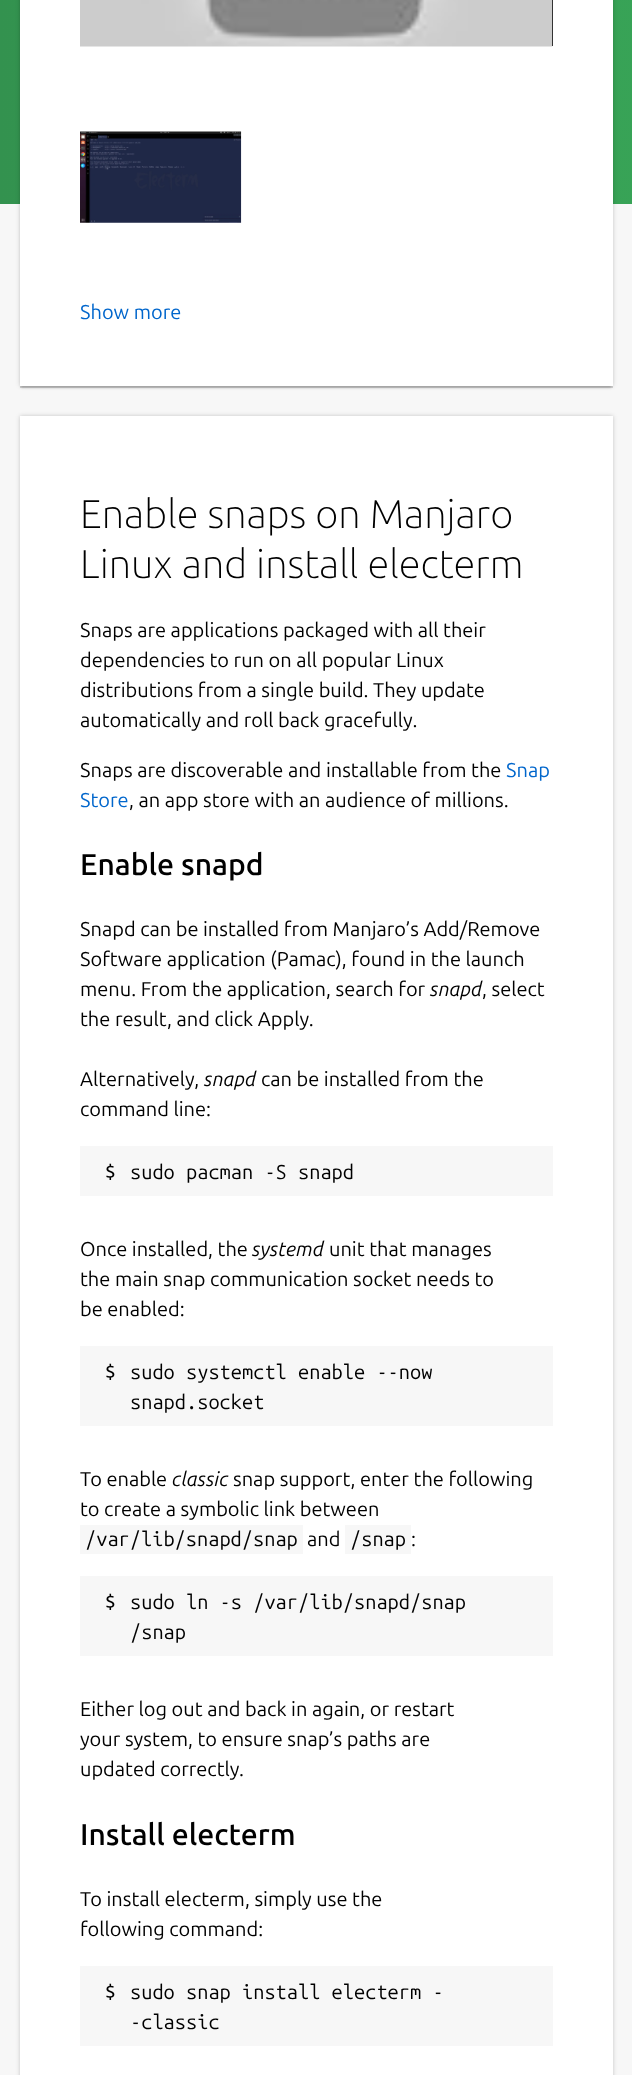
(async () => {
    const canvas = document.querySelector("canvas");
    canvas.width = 632;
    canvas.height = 2075;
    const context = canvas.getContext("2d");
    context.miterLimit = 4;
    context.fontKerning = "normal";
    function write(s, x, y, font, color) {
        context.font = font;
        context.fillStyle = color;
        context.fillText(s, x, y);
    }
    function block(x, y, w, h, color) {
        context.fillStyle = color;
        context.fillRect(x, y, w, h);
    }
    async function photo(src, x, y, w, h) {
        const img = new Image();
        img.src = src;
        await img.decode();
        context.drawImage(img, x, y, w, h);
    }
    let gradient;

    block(0, 0, 632, 2075, "rgb(247, 247, 247)");
    gradient = context.createLinearGradient(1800, -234, 0, -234);
    gradient.addColorStop(0, "rgb(53, 191, 92)");
    gradient.addColorStop(1, "rgb(39, 140, 68)");
    context.fillStyle = gradient;
    context.fillRect(0, 0, 632, 204);
    context.fillStyle = "rgba(255, 255, 255, 0.06)";
    context.beginPath();
    context.moveTo(0, -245);
    context.lineTo(0, 204);
    context.lineTo(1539, 204);
    context.closePath();
    context.fill();
    context.fillStyle = "rgba(0, 0, 0, 0.2)";
    context.filter = "blur(2px)";
    context.beginPath();
    context.rect(20, -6, 593, 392);
    context.fill();
    context.filter = "none";
    context.fillStyle = "rgba(0, 0, 0, 0.15)";
    context.filter = "blur(1px)";
    context.beginPath();
    context.rect(21, -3, 590, 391);
    context.fill();
    context.filter = "none";
    context.filter = "blur(0.5px)";
    context.beginPath();
    context.rect(20, -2, 593, 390);
    context.fill();
    context.filter = "none";
    block(20, 0, 593, 386, "rgb(255, 255, 255)");
    block(552, 0, 1, 46, "rgb(0, 0, 0)");
    await photo("media/1.png", 80, 0, 473, 47);
    await photo("media/2.png", 80, 131, 162, 92);
    write("Show more", 80, 319, "20px Ubuntu", "rgb(0, 102, 204)");
    context.fillStyle = "rgba(0, 0, 0, 0.2)";
    context.filter = "blur(2px)";
    context.beginPath();
    context.rect(20, 416, 593, 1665);
    context.fill();
    context.filter = "none";
    block(20, 416, 593, 1659, "rgb(255, 255, 255)");
    write("Enable snaps on Manjaro", 80, 528, "200 40px Ubuntu", "rgb(0, 0, 0)");
    write("Linux and install electerm", 80, 578, "200 40px Ubuntu", "rgb(0, 0, 0)");
    write("Snaps are applications packaged with all their", 80, 637, "20px Ubuntu", "rgb(0, 0, 0)");
    write("dependencies to run on all popular Linux", 80, 667, "20px Ubuntu", "rgb(0, 0, 0)");
    write("distributions from a single build. They update", 80, 697, "20px Ubuntu", "rgb(0, 0, 0)");
    write("automatically and roll back gracefully.", 80, 727, "20px Ubuntu", "rgb(0, 0, 0)");
    write("Snaps are discoverable and installable from the", 80, 777, "20px Ubuntu", "rgb(0, 0, 0)");
    write("Snap", 506, 777, "20px Ubuntu", "rgb(0, 102, 204)");
    write("Store", 80, 807, "20px Ubuntu", "rgb(0, 102, 204)");
    write(", an app store with an audience of millions.", 129, 807, "20px Ubuntu", "rgb(0, 0, 0)");
    write("Enable snapd", 80, 875, "500 30px Ubuntu", "rgb(0, 0, 0)");
    write("Snapd can be installed from Manjaro’s Add/Remove", 80, 936, "20px Ubuntu", "rgb(0, 0, 0)");
    write("Software application (Pamac), found in the launch", 80, 966, "20px Ubuntu", "rgb(0, 0, 0)");
    write("menu. From the application, search for", 80, 996, "20px Ubuntu", "rgb(0, 0, 0)");
    write("snapd", 430, 996, "italic 20px Ubuntu", "rgb(0, 0, 0)");
    write(", select", 482, 996, "20px Ubuntu", "rgb(0, 0, 0)");
    write("the result, and click Apply.", 80, 1026, "20px Ubuntu", "rgb(0, 0, 0)");
    write("Alternatively,", 80, 1086, "20px Ubuntu", "rgb(0, 0, 0)");
    write("snapd", 204, 1086, "italic 20px Ubuntu", "rgb(0, 0, 0)");
    write("can be installed from the", 261, 1086, "20px Ubuntu", "rgb(0, 0, 0)");
    write("command line:", 80, 1116, "20px Ubuntu", "rgb(0, 0, 0)");
    block(80, 1146, 473, 50, "rgb(247, 247, 247)");
    await photo("media/3.png", 106, 1163, 9, 17);
    write("sudo pacman -S snapd", 130, 1179, "20px Ubuntu Mono", "rgb(0, 0, 0)");
    write("Once installed, the", 80, 1256, "20px Ubuntu", "rgb(0, 0, 0)");
    write("systemd", 252, 1256, "italic 20px Ubuntu", "rgb(0, 0, 0)");
    write("unit that manages", 329, 1256, "20px Ubuntu", "rgb(0, 0, 0)");
    write("the main snap communication socket needs to", 80, 1286, "20px Ubuntu", "rgb(0, 0, 0)");
    write("be enabled:", 80, 1316, "20px Ubuntu", "rgb(0, 0, 0)");
    block(80, 1346, 473, 80, "rgb(247, 247, 247)");
    await photo("media/3.png", 106, 1363, 9, 17);
    write("sudo systemctl enable --now", 130, 1379, "20px Ubuntu Mono", "rgb(0, 0, 0)");
    write("snapd.socket", 130, 1409, "20px Ubuntu Mono", "rgb(0, 0, 0)");
    write("To enable", 80, 1486, "20px Ubuntu", "rgb(0, 0, 0)");
    write("classic", 172, 1486, "italic 20px Ubuntu", "rgb(0, 0, 0)");
    write("snap support, enter the following", 233, 1486, "20px Ubuntu", "rgb(0, 0, 0)");
    write("to create a symbolic link between", 80, 1516, "20px Ubuntu", "rgb(0, 0, 0)");
    block(80, 1525, 223, 29, "rgb(247, 247, 247)");
    write("/var/lib/snapd/snap", 85, 1546, "20px Ubuntu Mono", "rgb(0, 0, 0)");
    write("and", 307, 1546, "20px Ubuntu", "rgb(0, 0, 0)");
    block(345, 1525, 66, 29, "rgb(247, 247, 247)");
    write("/snap", 350, 1546, "20px Ubuntu Mono", "rgb(0, 0, 0)");
    write(":", 411, 1546, "20px Ubuntu", "rgb(0, 0, 0)");
    block(80, 1576, 473, 80, "rgb(247, 247, 247)");
    await photo("media/3.png", 106, 1593, 9, 17);
    write("sudo ln -s /var/lib/snapd/snap", 130, 1609, "20px Ubuntu Mono", "rgb(0, 0, 0)");
    write("/snap", 130, 1639, "20px Ubuntu Mono", "rgb(0, 0, 0)");
    write("Either log out and back in again, or restart", 80, 1716, "20px Ubuntu", "rgb(0, 0, 0)");
    write("your system, to ensure snap’s paths are", 80, 1746, "20px Ubuntu", "rgb(0, 0, 0)");
    write("updated correctly.", 80, 1776, "20px Ubuntu", "rgb(0, 0, 0)");
    write("Install electerm", 80, 1845, "500 30px Ubuntu", "rgb(0, 0, 0)");
    write("To install electerm, simply use the", 80, 1906, "20px Ubuntu", "rgb(0, 0, 0)");
    write("following command:", 80, 1936, "20px Ubuntu", "rgb(0, 0, 0)");
    block(80, 1966, 473, 80, "rgb(247, 247, 247)");
    await photo("media/3.png", 106, 1983, 9, 17);
    write("sudo snap install electerm -", 130, 1999, "20px Ubuntu Mono", "rgb(0, 0, 0)");
    write("-classic", 130, 2029, "20px Ubuntu Mono", "rgb(0, 0, 0)");
})();
